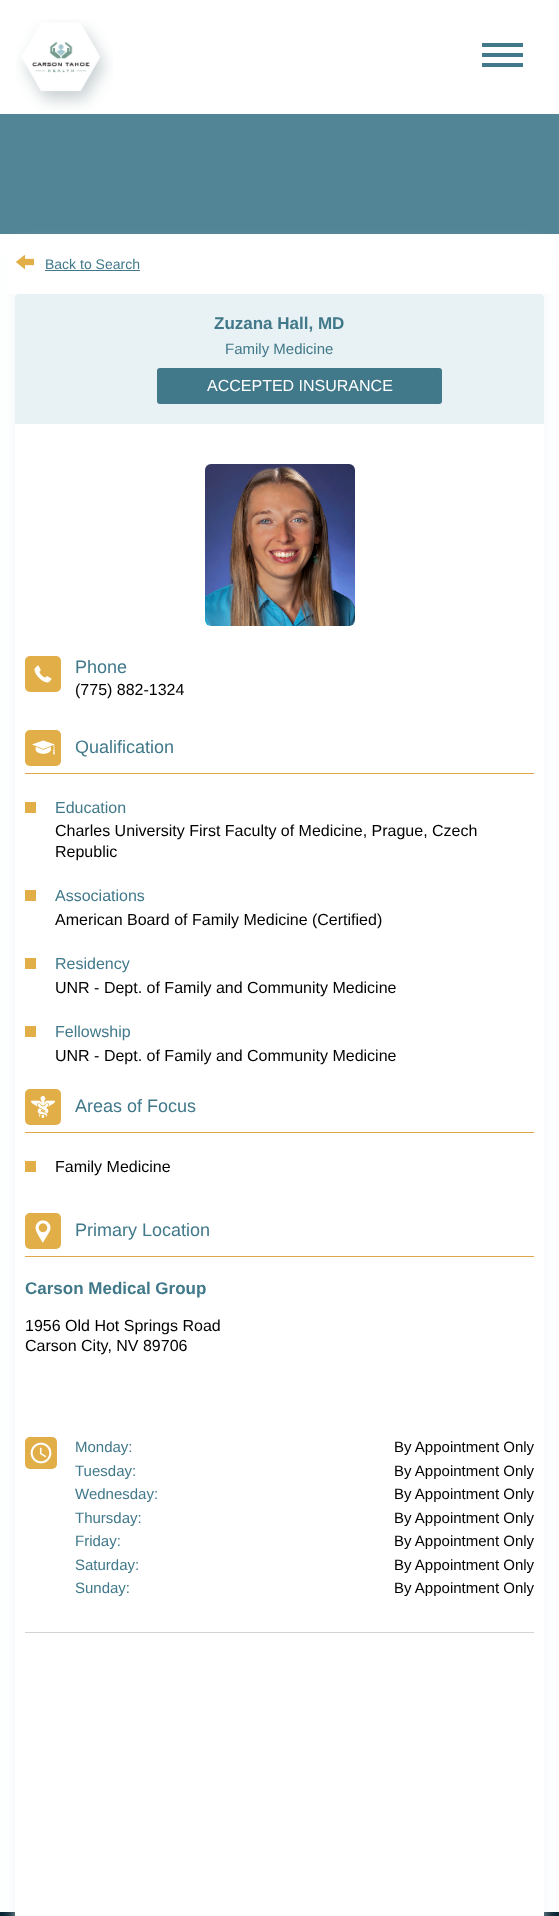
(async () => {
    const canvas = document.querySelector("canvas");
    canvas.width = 559;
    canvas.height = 1916;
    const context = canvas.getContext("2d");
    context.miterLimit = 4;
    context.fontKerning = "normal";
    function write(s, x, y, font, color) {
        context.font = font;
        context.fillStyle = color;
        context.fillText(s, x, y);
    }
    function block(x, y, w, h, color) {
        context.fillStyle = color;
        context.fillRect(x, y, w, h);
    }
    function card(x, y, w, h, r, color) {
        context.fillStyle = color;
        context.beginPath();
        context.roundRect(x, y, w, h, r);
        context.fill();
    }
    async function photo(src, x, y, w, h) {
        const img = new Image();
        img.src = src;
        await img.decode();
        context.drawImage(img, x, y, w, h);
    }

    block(0, 0, 559, 1916, "rgb(255, 255, 255)");
    await photo("media/1.png", 16, 19, 97, 92);
    block(482, 43, 41, 4, "rgb(65, 121, 139)");
    block(482, 53, 41, 4, "rgb(65, 121, 139)");
    block(482, 63, 41, 4, "rgb(65, 121, 139)");
    block(0, 114, 559, 120, "rgb(82, 133, 149)");
    block(0, 1912, 559, 4, "rgb(7, 36, 51)");
    context.fillStyle = "rgba(232, 241, 243, 0.7)";
    context.filter = "blur(7px)";
    context.beginPath();
    context.roundRect(15, 244, 529, 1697, 4);
    context.fill();
    context.filter = "none";
    block(15, 294, 529, 1622, "rgb(255, 255, 255)");
    block(8, 237, 543, 57, "rgb(255, 255, 255)");
    await photo("media/2.png", 16, 255, 18, 14);
    write("Back to Search", 45, 269, "14px Liberation Sans", "rgb(65, 121, 139)");
    block(45, 270, 95, 1, "rgb(65, 121, 139)");
    context.fillStyle = "rgb(232, 241, 243)";
    context.beginPath();
    context.roundRect(15, 294, 529, 130, [4, 4, 0, 0]);
    context.fill();
    write("Zuzana Hall, MD", 214, 329, "bold 17px Liberation Sans", "rgb(65, 121, 139)");
    write("Family Medicine", 225, 354, "15px Liberation Sans", "rgb(65, 121, 139)");
    card(157, 368, 285, 36, 3, "rgb(65, 121, 139)");
    write("ACCEPTED INSURANCE", 207, 391, "16px Liberation Sans", "rgb(255, 255, 255)");
    await photo("media/3.png", 205, 464, 150, 162);
    card(25, 656, 36, 36, 5, "rgb(226, 174, 71)");
    await photo("media/4.png", 34, 665, 18, 18);
    write("Phone", 75, 673, "18px Liberation Sans", "rgb(65, 121, 139)");
    write("(775) 882-1324", 75, 695, "16px Liberation Sans", "rgb(0, 0, 0)");
    card(25, 730, 36, 36, 5, "rgb(226, 174, 71)");
    await photo("media/5.png", 32, 740, 23, 15);
    write("Qualification", 75, 753, "18px Liberation Sans", "rgb(65, 121, 139)");
    block(25, 773, 509, 1, "rgb(223, 167, 72)");
    block(25, 802, 11, 11, "rgb(226, 174, 71)");
    write("Education", 55, 813, "16px Liberation Sans", "rgb(65, 121, 139)");
    write("Charles University First Faculty of Medicine, Prague, Czech", 55, 836, "16px Liberation Sans", "rgb(0, 0, 0)");
    write("Republic", 55, 857, "16px Liberation Sans", "rgb(0, 0, 0)");
    block(25, 890, 11, 11, "rgb(226, 174, 71)");
    write("Associations", 55, 901, "16px Liberation Sans", "rgb(65, 121, 139)");
    write("American Board of Family Medicine (Certified)", 55, 925, "16px Liberation Sans", "rgb(0, 0, 0)");
    block(25, 958, 11, 11, "rgb(226, 174, 71)");
    write("Residency", 55, 969, "16px Liberation Sans", "rgb(65, 121, 139)");
    write("UNR - Dept. of Family and Community Medicine", 55, 993, "16px Liberation Sans", "rgb(0, 0, 0)");
    block(25, 1026, 11, 11, "rgb(226, 174, 71)");
    write("Fellowship", 55, 1037, "16px Liberation Sans", "rgb(65, 121, 139)");
    write("UNR - Dept. of Family and Community Medicine", 55, 1061, "16px Liberation Sans", "rgb(0, 0, 0)");
    card(25, 1089, 36, 36, 5, "rgb(226, 174, 71)");
    await photo("media/6.png", 31, 1096, 24, 22);
    write("Areas of Focus", 75, 1112, "18px Liberation Sans", "rgb(65, 121, 139)");
    block(25, 1132, 509, 1, "rgb(223, 167, 72)");
    block(25, 1161, 11, 11, "rgb(226, 174, 71)");
    write("Family Medicine", 55, 1172, "16px Liberation Sans", "rgb(0, 0, 0)");
    card(25, 1213, 36, 36, 5, "rgb(226, 174, 71)");
    await photo("media/7.png", 35, 1220, 16, 23);
    write("Primary Location", 75, 1236, "18px Liberation Sans", "rgb(65, 121, 139)");
    block(25, 1256, 509, 1, "rgb(223, 167, 72)");
    block(25, 1632, 509, 1, "rgb(212, 211, 210)");
    write("Carson Medical Group", 25, 1294, "bold 17px Liberation Sans", "rgb(65, 121, 139)");
    write("1956 Old Hot Springs Road", 25, 1331, "16px Liberation Sans", "rgb(0, 0, 0)");
    write("Carson City, NV 89706", 25, 1351, "16px Liberation Sans", "rgb(0, 0, 0)");
    card(25, 1437, 32, 32, 5, "rgb(226, 174, 71)");
    await photo("media/8.png", 30, 1442, 22, 22);
    write("Monday:", 75, 1452, "15px Liberation Sans", "rgb(65, 121, 139)");
    write("By Appointment Only", 394, 1452, "15px Liberation Sans", "rgb(0, 0, 0)");
    write("Tuesday:", 75, 1476, "15px Liberation Sans", "rgb(65, 121, 139)");
    write("By Appointment Only", 394, 1476, "15px Liberation Sans", "rgb(0, 0, 0)");
    write("Wednesday:", 75, 1499, "15px Liberation Sans", "rgb(65, 121, 139)");
    write("By Appointment Only", 394, 1499, "15px Liberation Sans", "rgb(0, 0, 0)");
    write("Thursday:", 75, 1523, "15px Liberation Sans", "rgb(65, 121, 139)");
    write("By Appointment Only", 394, 1523, "15px Liberation Sans", "rgb(0, 0, 0)");
    write("Friday:", 75, 1546, "15px Liberation Sans", "rgb(65, 121, 139)");
    write("By Appointment Only", 394, 1546, "15px Liberation Sans", "rgb(0, 0, 0)");
    write("Saturday:", 75, 1570, "15px Liberation Sans", "rgb(65, 121, 139)");
    write("By Appointment Only", 394, 1570, "15px Liberation Sans", "rgb(0, 0, 0)");
    write("Sunday:", 75, 1593, "15px Liberation Sans", "rgb(65, 121, 139)");
    write("By Appointment Only", 394, 1593, "15px Liberation Sans", "rgb(0, 0, 0)");
})();
